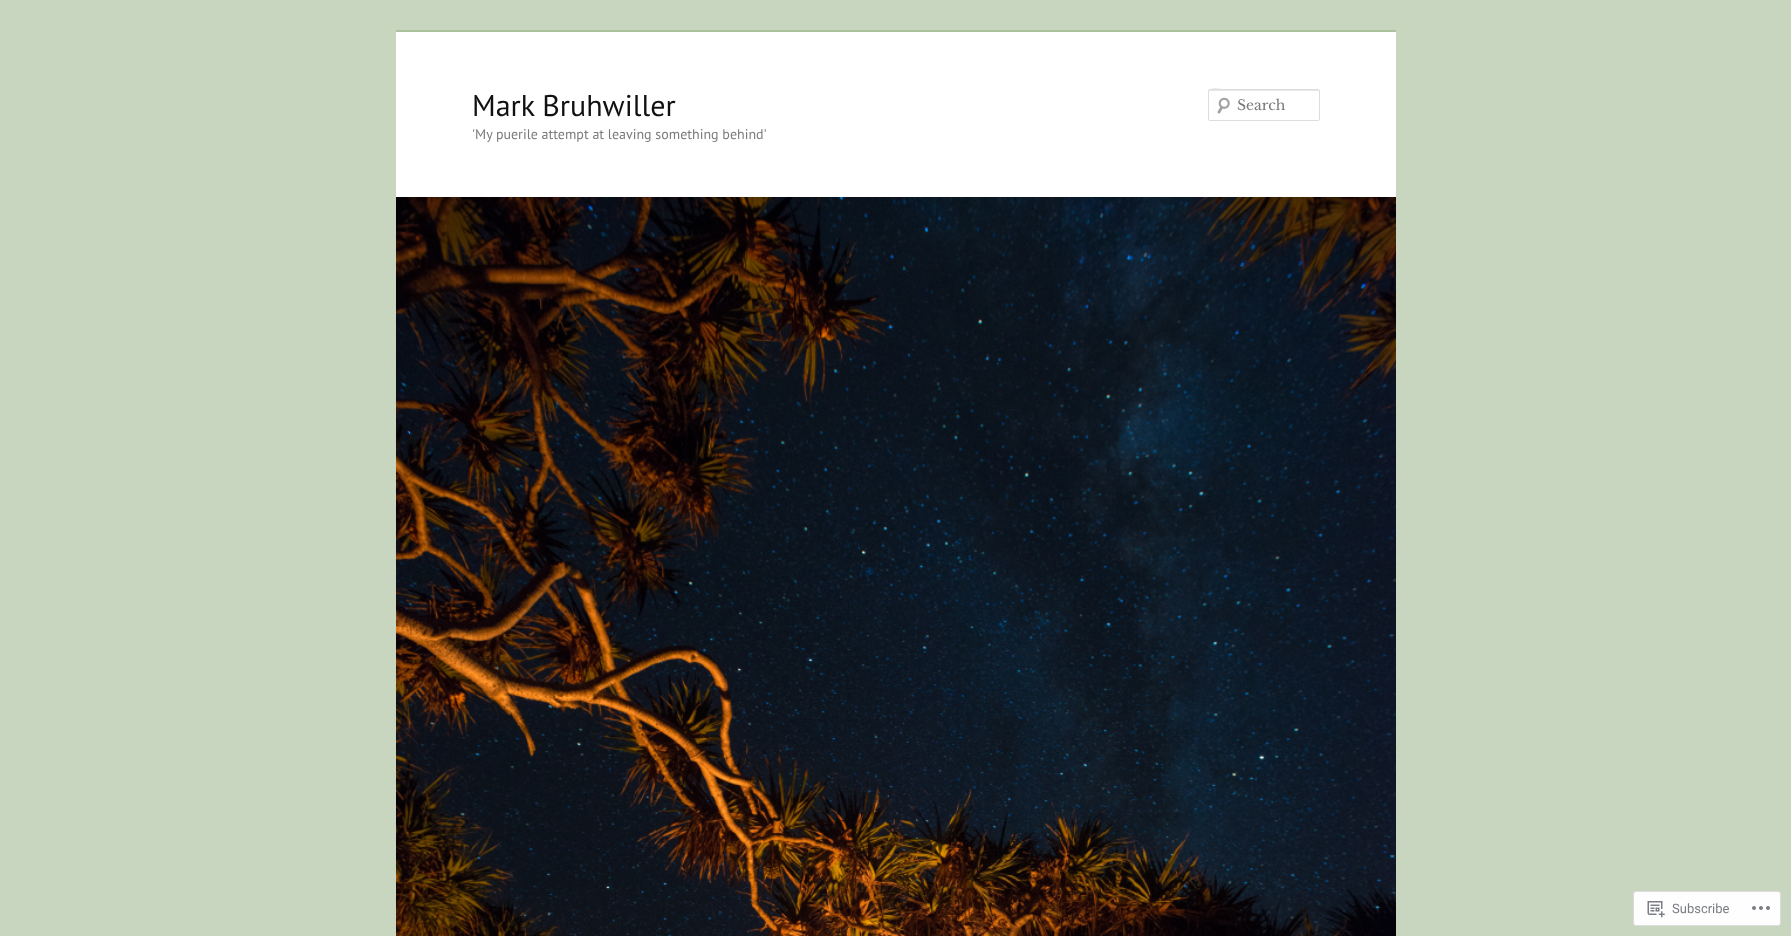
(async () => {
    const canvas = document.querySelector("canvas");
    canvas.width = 1791;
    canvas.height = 936;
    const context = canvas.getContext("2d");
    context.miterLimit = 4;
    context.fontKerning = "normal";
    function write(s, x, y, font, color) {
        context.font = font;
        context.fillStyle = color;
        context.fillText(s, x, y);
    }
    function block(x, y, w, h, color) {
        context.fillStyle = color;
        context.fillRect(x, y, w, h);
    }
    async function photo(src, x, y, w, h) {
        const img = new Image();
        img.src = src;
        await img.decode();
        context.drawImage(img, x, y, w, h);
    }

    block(0, 0, 1791, 936, "rgb(200, 214, 191)");
    block(396, 32, 1000, 165, "rgb(255, 255, 255)");
    block(396, 30, 1000, 2, "rgb(171, 193, 158)");
    write("Mark Bruhwiller", 472, 116, "30px PT Sans", "rgb(17, 17, 17)");
    write("'My puerile attempt at leaving something behind'", 472, 139, "14px PT Sans", "rgb(122, 122, 122)");
    await photo("media/1.png", 1217, 97, 13, 17);
    context.fillStyle = "rgb(230, 230, 230)";
    context.beginPath();
    context.moveTo(1210, 91);
    context.lineTo(1319, 91);
    context.lineTo(1319, 92);
    context.lineTo(1318, 90);
    context.lineTo(1228, 90);
    context.bezierCurveTo(1224, 90, 1209, 85, 1209, 92);
    context.bezierCurveTo(1209, 91, 1209, 91, 1210, 91);
    context.closePath();
    context.fill();
    context.beginPath();
    context.roundRect(1208.5, 89.5, 111, 31, 1.5);
    context.strokeStyle = "rgb(221, 221, 221)";
    context.stroke();
    write("Search", 1237, 110, "14px Libre Baskerville", "rgb(122, 122, 122)");
    await photo("media/2.png", 396, 197, 1000, 739);
    context.fillStyle = "rgb(254, 254, 254)";
    context.beginPath();
    context.roundRect(1633.5, 891.5, 147, 34, 2.5);
    context.fill();
    context.strokeStyle = "rgb(220, 220, 221)";
    context.stroke();
    await photo("media/3.png", 1647, 901, 18, 17);
    write("Subscribe", 1672, 913, "13px Roboto", "rgb(122, 126, 131)");
    await photo("media/4.png", 1752, 906, 18, 4);
})();
